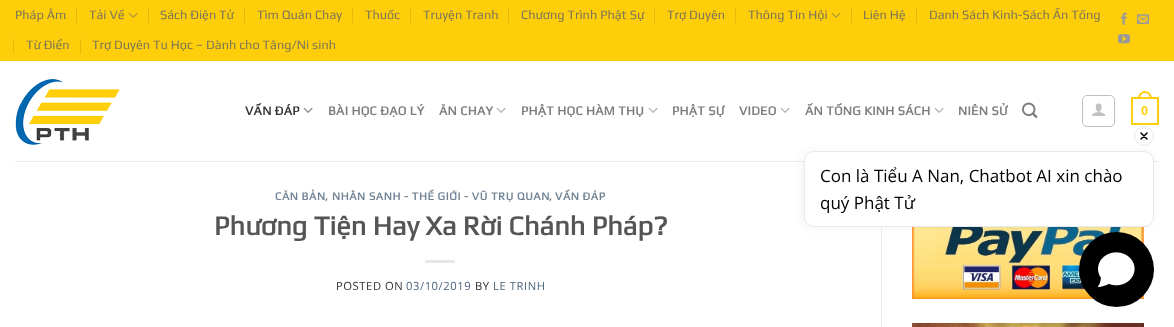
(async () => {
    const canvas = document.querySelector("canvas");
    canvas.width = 1174;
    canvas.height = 327;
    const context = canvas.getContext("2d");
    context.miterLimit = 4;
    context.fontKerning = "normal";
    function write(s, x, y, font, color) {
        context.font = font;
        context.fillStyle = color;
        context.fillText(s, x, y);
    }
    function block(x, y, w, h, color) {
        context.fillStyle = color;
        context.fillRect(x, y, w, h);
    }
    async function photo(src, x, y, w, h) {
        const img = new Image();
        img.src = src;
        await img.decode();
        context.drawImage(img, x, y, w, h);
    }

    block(0, 0, 1174, 327, "rgb(255, 255, 255)");
    block(0, 0, 1174, 61, "rgb(255, 206, 10)");
    write("Pháp Âm", 15, 19, "12.75px Play", "rgb(125, 118, 88)");
    block(76, 8, 1, 15, "rgb(230, 185, 9)");
    write("Tải Về", 89, 19, "12.75px Play", "rgb(125, 118, 88)");
    await photo("media/1.png", 128, 12, 10, 6);
    block(148, 8, 1, 15, "rgb(230, 185, 9)");
    write("Sách Điện Tử", 160, 19, "12.75px Play", "rgb(125, 118, 88)");
    block(244, 8, 1, 15, "rgb(230, 185, 9)");
    write("Tìm Quán Chay", 257, 19, "12.75px Play", "rgb(125, 118, 88)");
    block(352, 8, 1, 15, "rgb(230, 185, 9)");
    write("Thuốc", 365, 19, "12.75px Play", "rgb(125, 118, 88)");
    block(410, 8, 1, 15, "rgb(230, 185, 9)");
    write("Truyện Tranh", 423, 19, "12.75px Play", "rgb(125, 118, 88)");
    block(508, 8, 1, 15, "rgb(230, 185, 9)");
    write("Chương Trình Phật Sự", 521, 19, "12.75px Play", "rgb(125, 118, 88)");
    block(654, 8, 1, 15, "rgb(230, 185, 9)");
    write("Trợ Duyên", 667, 19, "12.75px Play", "rgb(125, 118, 88)");
    block(735, 8, 1, 15, "rgb(230, 185, 9)");
    write("Thông Tin Hội", 748, 19, "12.75px Play", "rgb(125, 118, 88)");
    await photo("media/1.png", 831, 12, 10, 6);
    block(851, 8, 1, 15, "rgb(230, 185, 9)");
    write("Liên Hệ", 863, 19, "12.75px Play", "rgb(125, 118, 88)");
    block(916, 8, 1, 15, "rgb(230, 185, 9)");
    write("Danh Sách Kinh-Sách Ấn Tống", 929, 19, "12.75px Play", "rgb(125, 118, 88)");
    block(13, 39, 1, 15, "rgb(230, 185, 9)");
    write("Từ Điển", 26, 49, "12.75px Play", "rgb(125, 118, 88)");
    block(80, 39, 1, 15, "rgb(230, 185, 9)");
    write("Trợ Duyên Tu Học – Dành cho Tăng/Ni sinh", 92, 49, "12.75px Play", "rgb(125, 118, 88)");
    await photo("media/2.png", 1121, 12, 6, 13);
    await photo("media/3.png", 1137, 14, 12, 10);
    await photo("media/4.png", 1118, 34, 12, 10);
    await photo("media/5.png", 15, 79, 105, 66);
    context.letterSpacing = "0.25px";
    write("VẤN ĐÁP", 245, 115, "bold 12.75px Play", "rgb(51, 51, 51)");
    await photo("media/6.png", 303, 107, 10, 6);
    write("BÀI HỌC ĐẠO LÝ", 328, 115, "bold 12.75px Play", "rgb(125, 125, 125)");
    write("ĂN CHAY", 439, 115, "bold 12.75px Play", "rgb(125, 125, 125)");
    await photo("media/7.png", 496, 107, 10, 6);
    write("PHẬT HỌC HÀM THỤ", 521, 115, "bold 12.75px Play", "rgb(125, 125, 125)");
    await photo("media/7.png", 648, 107, 10, 6);
    write("PHẬT SỰ", 672, 115, "bold 12.75px Play", "rgb(125, 125, 125)");
    write("VIDEO", 739, 115, "bold 12.75px Play", "rgb(125, 125, 125)");
    await photo("media/7.png", 780, 107, 10, 6);
    write("ẤN TỐNG KINH SÁCH", 805, 115, "bold 12.75px Play", "rgb(125, 125, 125)");
    await photo("media/7.png", 934, 107, 10, 6);
    write("NIÊN SỬ", 958, 115, "bold 12.75px Play", "rgb(125, 125, 125)");
    await photo("media/8.png", 1022, 102, 16, 16);
    context.beginPath();
    context.roundRect(1082.5, 95.5, 32, 31, 4.5);
    context.strokeStyle = "rgb(192, 192, 192)";
    context.stroke();
    await photo("media/9.png", 1092, 103, 14, 13);
    context.strokeStyle = "rgb(255, 206, 10)";
    context.lineWidth = 2;
    context.strokeRect(1132, 98, 26, 26);
    context.fillStyle = "rgb(255, 206, 10)";
    context.beginPath();
    context.moveTo(1145, 91);
    context.bezierCurveTo(1149.5, 91, 1152, 95, 1152, 99);
    context.lineTo(1138, 99);
    context.bezierCurveTo(1138, 95, 1140.5, 91, 1145, 91);
    context.closePath();
    context.moveTo(1145, 93);
    context.bezierCurveTo(1148.5, 93, 1150, 96, 1150, 99);
    context.lineTo(1140, 99);
    context.bezierCurveTo(1140, 96, 1141.5, 93, 1145, 93);
    context.closePath();
    context.fill("evenodd");
    write("0", 1141, 115, "bold 12.75px Liberation Sans", "rgb(255, 206, 10)");
    block(15, 161, 1144, 1, "rgb(235, 235, 235)");
    context.letterSpacing = "0.55px";
    write("CĂN BẢN", 275, 200, "bold 11.25px Play", "rgb(113, 132, 149)");
    write(",", 325, 200, "bold 11.25px Play", "rgb(119, 119, 119)");
    write("NHÂN SANH - THẾ GIỚI - VŨ TRỤ QUAN", 332, 200, "bold 11.25px Play", "rgb(113, 132, 149)");
    write(",", 549, 200, "bold 11.25px Play", "rgb(119, 119, 119)");
    write("VẤN ĐÁP", 555, 200, "bold 11.25px Play", "rgb(113, 132, 149)");
    context.letterSpacing = "0px";
    write("Phương Tiện Hay Xa Rời Chánh Pháp?", 214, 235, "bold 27.25px Play", "rgb(85, 85, 85)");
    block(425, 260, 30, 3, "rgb(230, 230, 230)");
    context.letterSpacing = "0.55px";
    write("POSTED ON", 336, 290, "11.25px Open Sans", "rgb(51, 51, 51)");
    write("03/10/2019", 406, 290, "11.25px Open Sans", "rgb(78, 101, 123)");
    write("BY", 475, 290, "11.25px Open Sans", "rgb(51, 51, 51)");
    write("LE TRINH", 493, 290, "11.25px Open Sans", "rgb(78, 101, 123)");
    block(881, 227, 1, 100, "rgb(236, 236, 236)");
    await photo("media/10.png", 912, 227, 232, 72);
    await photo("media/11.png", 912, 323, 232, 4);
    context.fillStyle = "rgb(0, 0, 0)";
    context.beginPath();
    context.arc(1116.5, 269.5, 37.5, 0, Math.PI * 2);
    context.fill();
    context.fillStyle = "rgba(0, 0, 0, 0.05)";
    context.filter = "blur(5px)";
    context.beginPath();
    context.roundRect(802, 151, 350, 76, 10);
    context.fill();
    context.filter = "none";
    context.beginPath();
    context.arc(1144, 136, 9.5, 0, Math.PI * 2);
    context.strokeStyle = "rgb(230, 233, 238)";
    context.lineWidth = 1;
    context.stroke();
    context.beginPath();
    context.moveTo(1141, 139);
    context.lineTo(1147, 133);
    context.moveTo(1141, 133);
    context.lineTo(1147, 139);
    context.strokeStyle = "rgb(0, 0, 0)";
    context.lineWidth = 1.5;
    context.lineCap = "round";
    context.lineJoin = "round";
    context.stroke();
    context.fillStyle = "rgb(255, 255, 255)";
    context.beginPath();
    context.roundRect(804.5, 151.5, 349, 75, 9.5);
    context.fill();
    context.strokeStyle = "rgb(230, 233, 238)";
    context.lineWidth = 1;
    context.lineJoin = "miter";
    context.stroke();
    context.letterSpacing = "0px";
    write("Con là Tiểu A Nan, Chatbot AI xin chào", 820, 182, "17px Open Sans", "rgb(0, 0, 0)");
    write("quý Phật Tử", 820, 209, "17px Open Sans", "rgb(0, 0, 0)");
    await photo("media/12.png", 1098, 252, 37, 36);
})();
